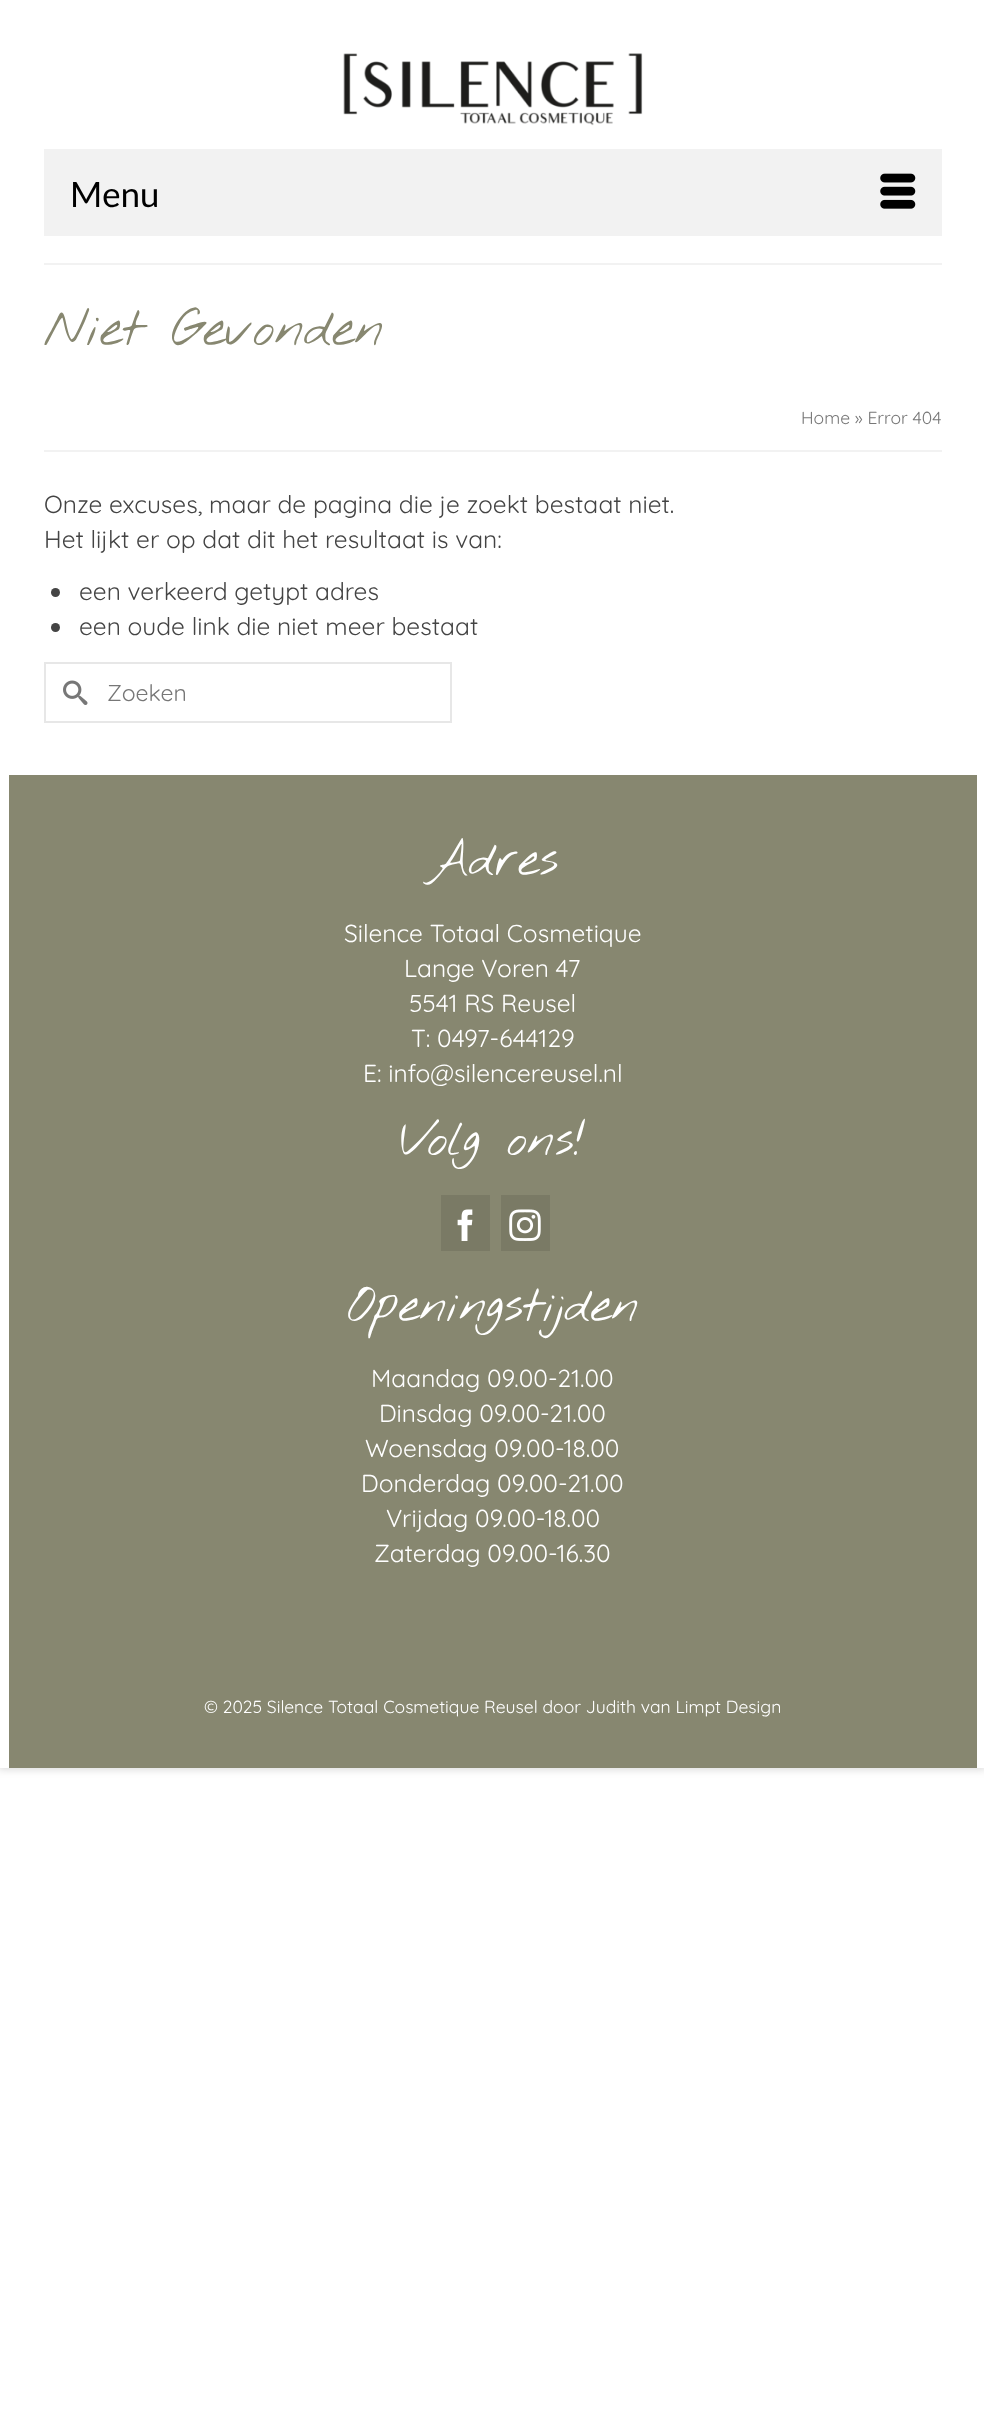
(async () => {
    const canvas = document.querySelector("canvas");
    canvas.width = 984;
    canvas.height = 2414;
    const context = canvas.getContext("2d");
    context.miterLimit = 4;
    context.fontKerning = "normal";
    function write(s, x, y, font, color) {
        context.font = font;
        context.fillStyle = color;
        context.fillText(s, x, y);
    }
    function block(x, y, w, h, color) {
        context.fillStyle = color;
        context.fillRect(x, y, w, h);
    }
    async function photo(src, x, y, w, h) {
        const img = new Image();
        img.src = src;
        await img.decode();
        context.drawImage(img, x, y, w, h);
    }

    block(0, 0, 984, 2414, "rgb(255, 255, 255)");
    context.save();
    context.beginPath();
    context.moveTo(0, 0);
    context.lineTo(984, 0);
    context.lineTo(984, 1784);
    context.lineTo(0, 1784);
    context.closePath();
    context.moveTo(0, 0);
    context.lineTo(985, 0);
    context.lineTo(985, 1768);
    context.lineTo(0, 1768);
    context.closePath();
    context.clip("evenodd");
    context.fillStyle = "rgba(0, 0, 0, 0.16)";
    context.filter = "blur(4.5px)";
    context.beginPath();
    context.rect(-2, -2, 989, 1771);
    context.fill();
    context.filter = "none";
    context.restore();
    await photo("media/1.png", 343, 53, 300, 73);
    block(44, 149, 898, 87, "rgb(242, 242, 242)");
    write("Menu", 70, 207, "35px Lato", "rgb(0, 0, 0)");
    await photo("media/2.png", 880, 173, 36, 36);
    block(44, 263, 898, 2, "rgb(242, 242, 242)");
    block(44, 450, 898, 2, "rgb(242, 242, 242)");
    write("Niet Gevonden", 44, 345, "100 52.5px Nothing You Could Do", "rgb(135, 135, 112)");
    write("Home » Error 404", 801, 424, "17.5px Quicksand", "rgb(119, 119, 119)");
    write("Onze excuses, maar de pagina die je zoekt bestaat niet.", 44, 513, "24.5px Quicksand", "rgb(68, 68, 68)");
    write("Het lijkt er op dat dit het resultaat is van:", 44, 548, "24.5px Quicksand", "rgb(68, 68, 68)");
    context.beginPath();
    context.arc(55.5, 592.5, 4.5, 0, Math.PI * 2);
    context.fill();
    write("een verkeerd getypt adres", 79, 600, "24.5px Quicksand", "rgb(68, 68, 68)");
    context.beginPath();
    context.arc(55.5, 627.5, 4.5, 0, Math.PI * 2);
    context.fill();
    write("een oude link die niet meer bestaat", 79, 635, "24.5px Quicksand", "rgb(68, 68, 68)");
    context.strokeStyle = "rgb(231, 231, 231)";
    context.lineWidth = 2;
    context.strokeRect(45, 663, 406, 59);
    await photo("media/3.png", 63, 680, 25, 25);
    write("Zoeken", 107, 701, "23px Quicksand", "rgb(119, 119, 119)");
    block(9, 775, 968, 993, "rgb(135, 135, 112)");
    write("Adres", 428, 875, "100 49px Nothing You Could Do", "rgb(255, 255, 255)");
    write("Silence Totaal Cosmetique", 344, 942, "24.5px Quicksand", "rgb(255, 255, 255)");
    write("Lange Voren 47", 404, 977, "24.5px Quicksand", "rgb(255, 255, 255)");
    write("5541 RS Reusel", 409, 1012, "24.5px Quicksand", "rgb(255, 255, 255)");
    write("T: 0497-644129", 411, 1047, "24.5px Quicksand", "rgb(255, 255, 255)");
    write("E: info@silencereusel.nl", 363, 1082, "24.5px Quicksand", "rgb(255, 255, 255)");
    write("Volg ons!", 400, 1155, "100 49px Nothing You Could Do", "rgb(255, 255, 255)");
    block(441, 1195, 49, 56, "rgb(122, 122, 101)");
    await photo("media/4.png", 457, 1209, 16, 32);
    block(501, 1195, 49, 56, "rgb(122, 122, 101)");
    await photo("media/5.png", 509, 1209, 32, 32);
    write("Openingstijden", 347, 1321, "100 49px Nothing You Could Do", "rgb(255, 255, 255)");
    write("Maandag 09.00-21.00", 371, 1387, "24.5px Quicksand", "rgb(255, 255, 255)");
    write("Dinsdag 09.00-21.00", 379, 1422, "24.5px Quicksand", "rgb(255, 255, 255)");
    write("Woensdag 09.00-18.00", 365, 1457, "24.5px Quicksand", "rgb(255, 255, 255)");
    write("Donderdag 09.00-21.00", 361, 1492, "24.5px Quicksand", "rgb(255, 255, 255)");
    write("Vrijdag 09.00-18.00", 386, 1527, "24.5px Quicksand", "rgb(255, 255, 255)");
    write("Zaterdag 09.00-16.30", 374, 1562, "24.5px Quicksand", "rgb(255, 255, 255)");
    write("© 2025 Silence Totaal Cosmetique Reusel door Judith van Limpt Design", 204, 1713, "17.5px Quicksand", "rgb(255, 255, 255)");
})();
